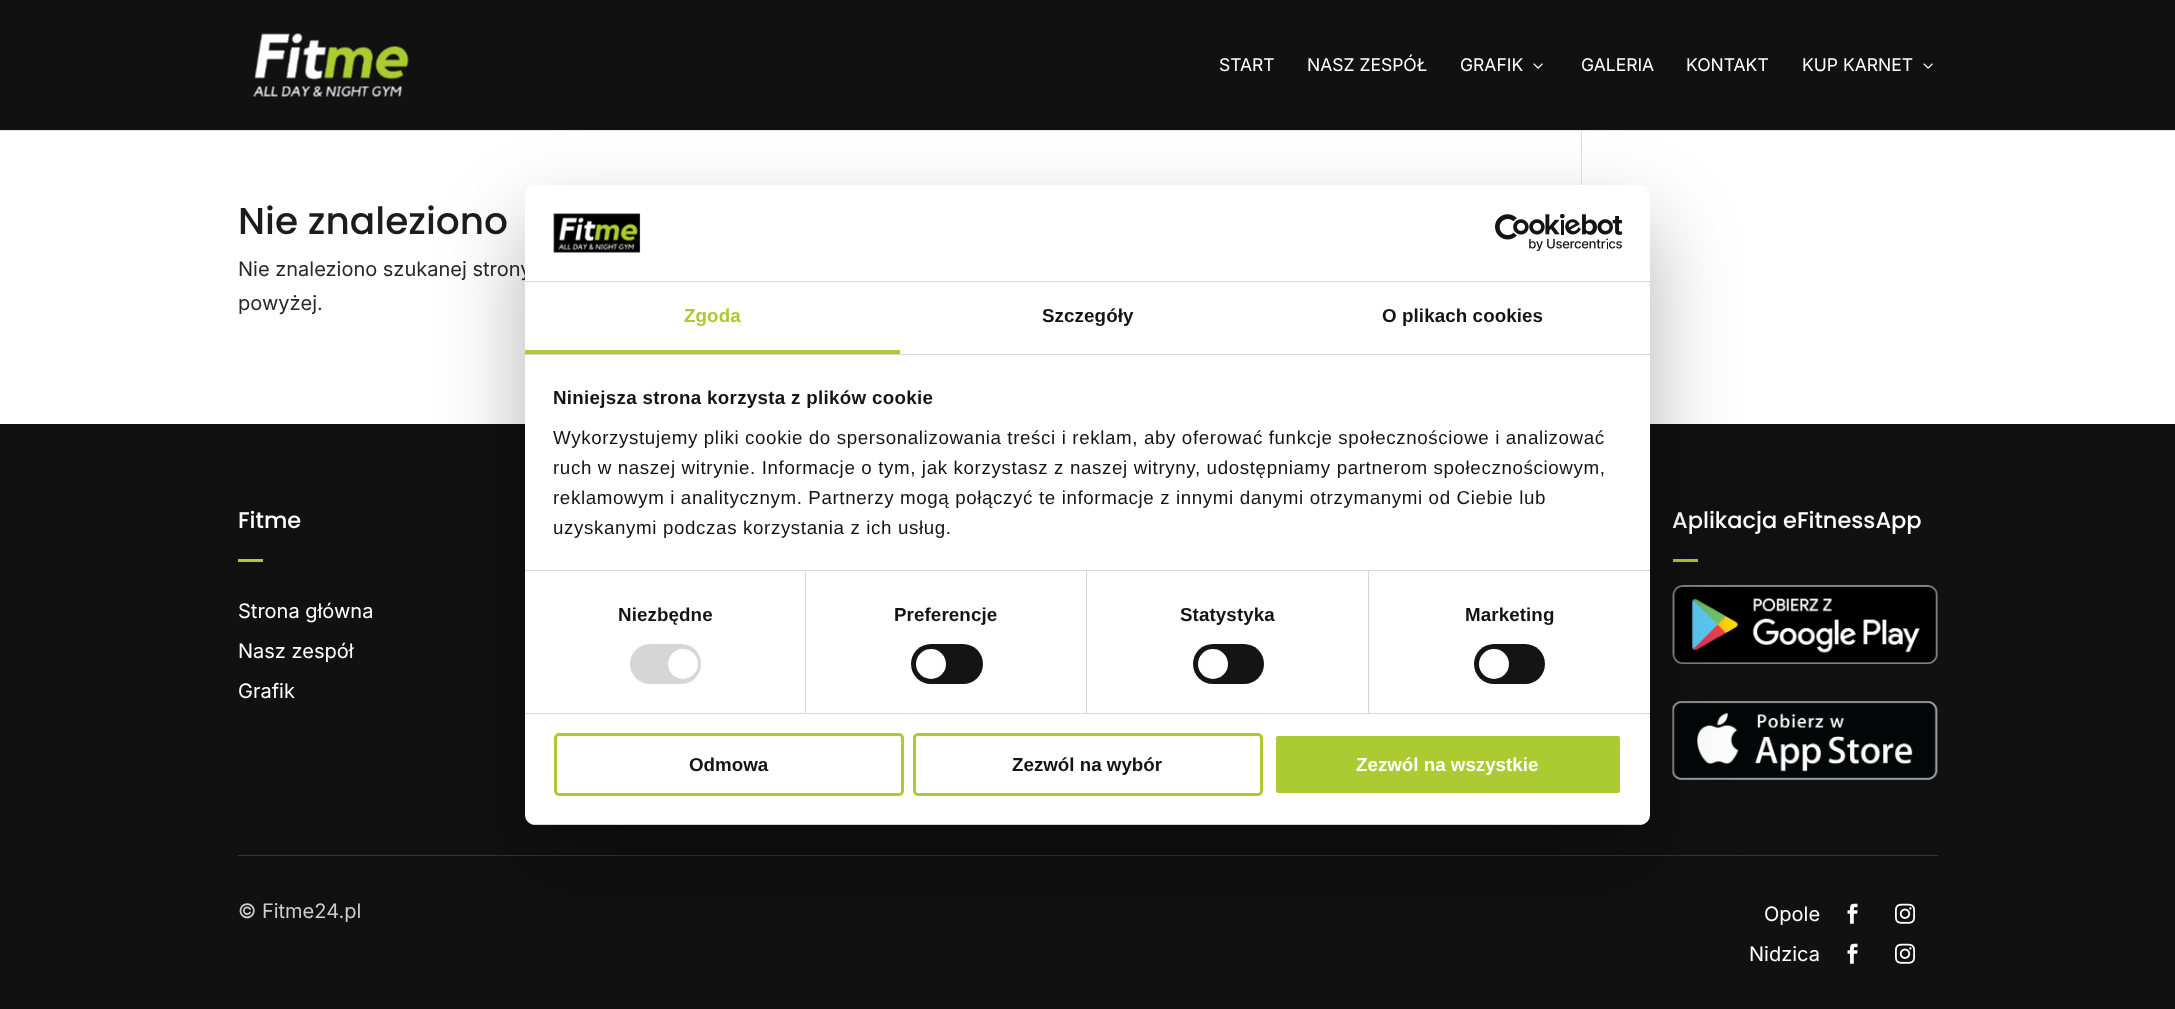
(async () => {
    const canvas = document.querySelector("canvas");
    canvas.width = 2175;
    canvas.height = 1009;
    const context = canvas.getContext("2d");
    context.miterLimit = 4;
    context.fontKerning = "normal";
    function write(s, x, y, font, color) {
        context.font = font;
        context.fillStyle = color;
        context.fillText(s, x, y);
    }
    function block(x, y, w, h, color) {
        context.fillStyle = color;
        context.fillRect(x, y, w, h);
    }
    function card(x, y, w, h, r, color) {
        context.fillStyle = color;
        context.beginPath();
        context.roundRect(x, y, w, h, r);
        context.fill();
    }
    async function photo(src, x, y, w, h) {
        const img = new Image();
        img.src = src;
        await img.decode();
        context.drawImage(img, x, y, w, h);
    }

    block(0, 0, 2175, 1009, "rgb(255, 255, 255)");
    block(0, 130, 2175, 1, "rgb(230, 230, 230)");
    block(0, 0, 2175, 130, "rgb(17, 17, 17)");
    await photo("media/1.png", 253, 33, 156, 65);
    write("START", 1219, 71, "17.5px Inter", "rgb(255, 255, 255)");
    write("NASZ ZESPÓŁ", 1307, 71, "17.5px Inter", "rgb(255, 255, 255)");
    write("GRAFIK", 1460, 71, "17.5px Inter", "rgb(255, 255, 255)");
    await photo("media/2.png", 1533, 63, 10, 6);
    write("GALERIA", 1581, 71, "17.5px Inter", "rgb(255, 255, 255)");
    write("KONTAKT", 1686, 71, "17.5px Inter", "rgb(255, 255, 255)");
    write("KUP KARNET", 1802, 71, "17.5px Inter", "rgb(255, 255, 255)");
    await photo("media/2.png", 1923, 63, 10, 6);
    block(1581, 130, 1, 55, "rgb(226, 226, 226)");
    block(1581, 130, 1, 1, "rgb(203, 203, 203)");
    write("Nie znaleziono", 238, 234, "500 37.5px Poppins", "rgb(28, 28, 28)");
    write("Nie znaleziono szukanej strony", 238, 276, "20px Inter", "rgb(40, 40, 40)");
    write("powyżej.", 238, 310, "20px Inter", "rgb(40, 40, 40)");
    block(0, 424, 2175, 585, "rgb(17, 17, 17)");
    write("Fitme", 238, 528, "500 22.5px Poppins", "rgb(255, 255, 255)");
    block(238, 559, 25, 3, "rgb(172, 203, 50)");
    write("Strona główna", 238, 618, "20px Inter", "rgb(255, 255, 255)");
    write("Nasz zespół", 238, 658, "20px Inter", "rgb(255, 255, 255)");
    write("Grafik", 238, 698, "20px Inter", "rgb(255, 255, 255)");
    write("Aplikacja eFitnessApp", 1672, 528, "500 22.5px Poppins", "rgb(255, 255, 255)");
    block(1673, 559, 25, 3, "rgb(172, 203, 50)");
    await photo("media/3.png", 1672, 585, 266, 79);
    await photo("media/4.png", 1672, 701, 266, 79);
    block(238, 855, 1700, 1, "rgb(55, 55, 55)");
    write("© Fitme24.pl", 238, 918, "20px Inter", "rgb(204, 204, 204)");
    write("Opole", 1764, 921, "20px Inter", "rgb(255, 255, 255)");
    await photo("media/5.png", 1847, 903, 11, 21);
    await photo("media/6.png", 1895, 903, 20, 21);
    write("Nidzica", 1749, 961, "20px Inter", "rgb(255, 255, 255)");
    await photo("media/5.png", 1847, 943, 11, 21);
    await photo("media/6.png", 1895, 943, 20, 21);
    context.fillStyle = "rgba(0, 0, 0, 0.3)";
    context.filter = "blur(42.5px)";
    context.beginPath();
    context.roundRect(525, 225, 1125, 640, 10);
    context.fill();
    context.filter = "none";
    card(525, 185, 1125, 640, 10, "rgb(255, 255, 255)");
    block(525, 281, 1125, 1, "rgb(214, 214, 214)");
    await photo("media/7.png", 553, 213, 88, 40);
    await photo("media/8.png", 1495, 214, 128, 37);
    block(525, 354, 1125, 1, "rgb(214, 214, 214)");
    block(525, 350, 375, 4, "rgb(172, 203, 50)");
    context.letterSpacing = "0.1px";
    write("Zgoda", 684, 322, "bold 18.75px Liberation Sans", "rgb(172, 203, 50)");
    write("Szczegóły", 1042, 322, "bold 18.75px Liberation Sans", "rgb(20, 20, 20)");
    write("O plikach cookies", 1382, 322, "bold 18.75px Liberation Sans", "rgb(20, 20, 20)");
    block(525, 570, 1125, 1, "rgb(214, 214, 214)");
    context.letterSpacing = "0.3px";
    write("Niniejsza strona korzysta z plików cookie", 553, 404, "bold 18.75px Liberation Sans", "rgb(20, 20, 20)");
    context.letterSpacing = "0.62px";
    write("Wykorzystujemy pliki cookie do spersonalizowania treści i reklam, aby oferować funkcje społecznościowe i analizować", 553, 444, "18.75px Liberation Sans", "rgb(20, 20, 20)");
    write("ruch w naszej witrynie. Informacje o tym, jak korzystasz z naszej witryny, udostępniamy partnerom społecznościowym,", 553, 474, "18.75px Liberation Sans", "rgb(20, 20, 20)");
    write("reklamowym i analitycznym. Partnerzy mogą połączyć te informacje z innymi danymi otrzymanymi od Ciebie lub", 553, 504, "18.75px Liberation Sans", "rgb(20, 20, 20)");
    write("uzyskanymi podczas korzystania z ich usług.", 553, 534, "18.75px Liberation Sans", "rgb(20, 20, 20)");
    block(525, 713, 1125, 1, "rgb(214, 214, 214)");
    block(805, 571, 1, 142, "rgb(214, 214, 214)");
    context.letterSpacing = "0.1px";
    write("Niezbędne", 618, 621, "bold 18.75px Liberation Sans", "rgb(20, 20, 20)");
    card(630, 644, 71, 40, 20, "rgb(214, 214, 214)");
    context.fillStyle = "rgb(255, 255, 255)";
    context.beginPath();
    context.arc(683, 664, 15, 0, Math.PI * 2);
    context.fill();
    block(1086, 571, 1, 142, "rgb(214, 214, 214)");
    write("Preferencje", 894, 621, "bold 18.75px Liberation Sans", "rgb(20, 20, 20)");
    card(911, 644, 72, 40, 20, "rgb(20, 20, 20)");
    context.fillStyle = "rgb(255, 255, 255)";
    context.beginPath();
    context.arc(931, 664, 15, 0, Math.PI * 2);
    context.fill();
    block(1368, 571, 1, 142, "rgb(214, 214, 214)");
    write("Statystyka", 1180, 621, "bold 18.75px Liberation Sans", "rgb(20, 20, 20)");
    card(1193, 644, 71, 40, 20, "rgb(20, 20, 20)");
    context.fillStyle = "rgb(255, 255, 255)";
    context.beginPath();
    context.arc(1213, 664, 15, 0, Math.PI * 2);
    context.fill();
    write("Marketing", 1465, 621, "bold 18.75px Liberation Sans", "rgb(20, 20, 20)");
    card(1474, 644, 71, 40, 20, "rgb(20, 20, 20)");
    context.fillStyle = "rgb(255, 255, 255)";
    context.beginPath();
    context.arc(1494, 664, 15, 0, Math.PI * 2);
    context.fill();
    context.save();
    context.beginPath();
    context.roundRect(525, 185, 1125, 640, 10);
    context.clip();
    block(525, 824, 1125, 1, "rgb(214, 214, 214)");
    context.restore();
    context.beginPath();
    context.roundRect(555.5, 734.5, 347, 60, 3.5);
    context.strokeStyle = "rgb(172, 203, 50)";
    context.lineWidth = 3;
    context.stroke();
    context.letterSpacing = "0px";
    write("Odmowa", 689, 771, "bold 18.75px Liberation Sans", "rgb(20, 20, 20)");
    context.beginPath();
    context.roundRect(914.5, 734.5, 347, 60, 3.5);
    context.stroke();
    write("Zezwól na wybór", 1012, 771, "bold 18.75px Liberation Sans", "rgb(20, 20, 20)");
    context.fillStyle = "rgb(172, 203, 50)";
    context.beginPath();
    context.roundRect(1274.5, 734.5, 347, 60, 3.5);
    context.fill();
    context.strokeStyle = "rgb(255, 255, 255)";
    context.stroke();
    write("Zezwól na wszystkie", 1356, 771, "bold 18.75px Liberation Sans", "rgb(255, 255, 255)");
})();
